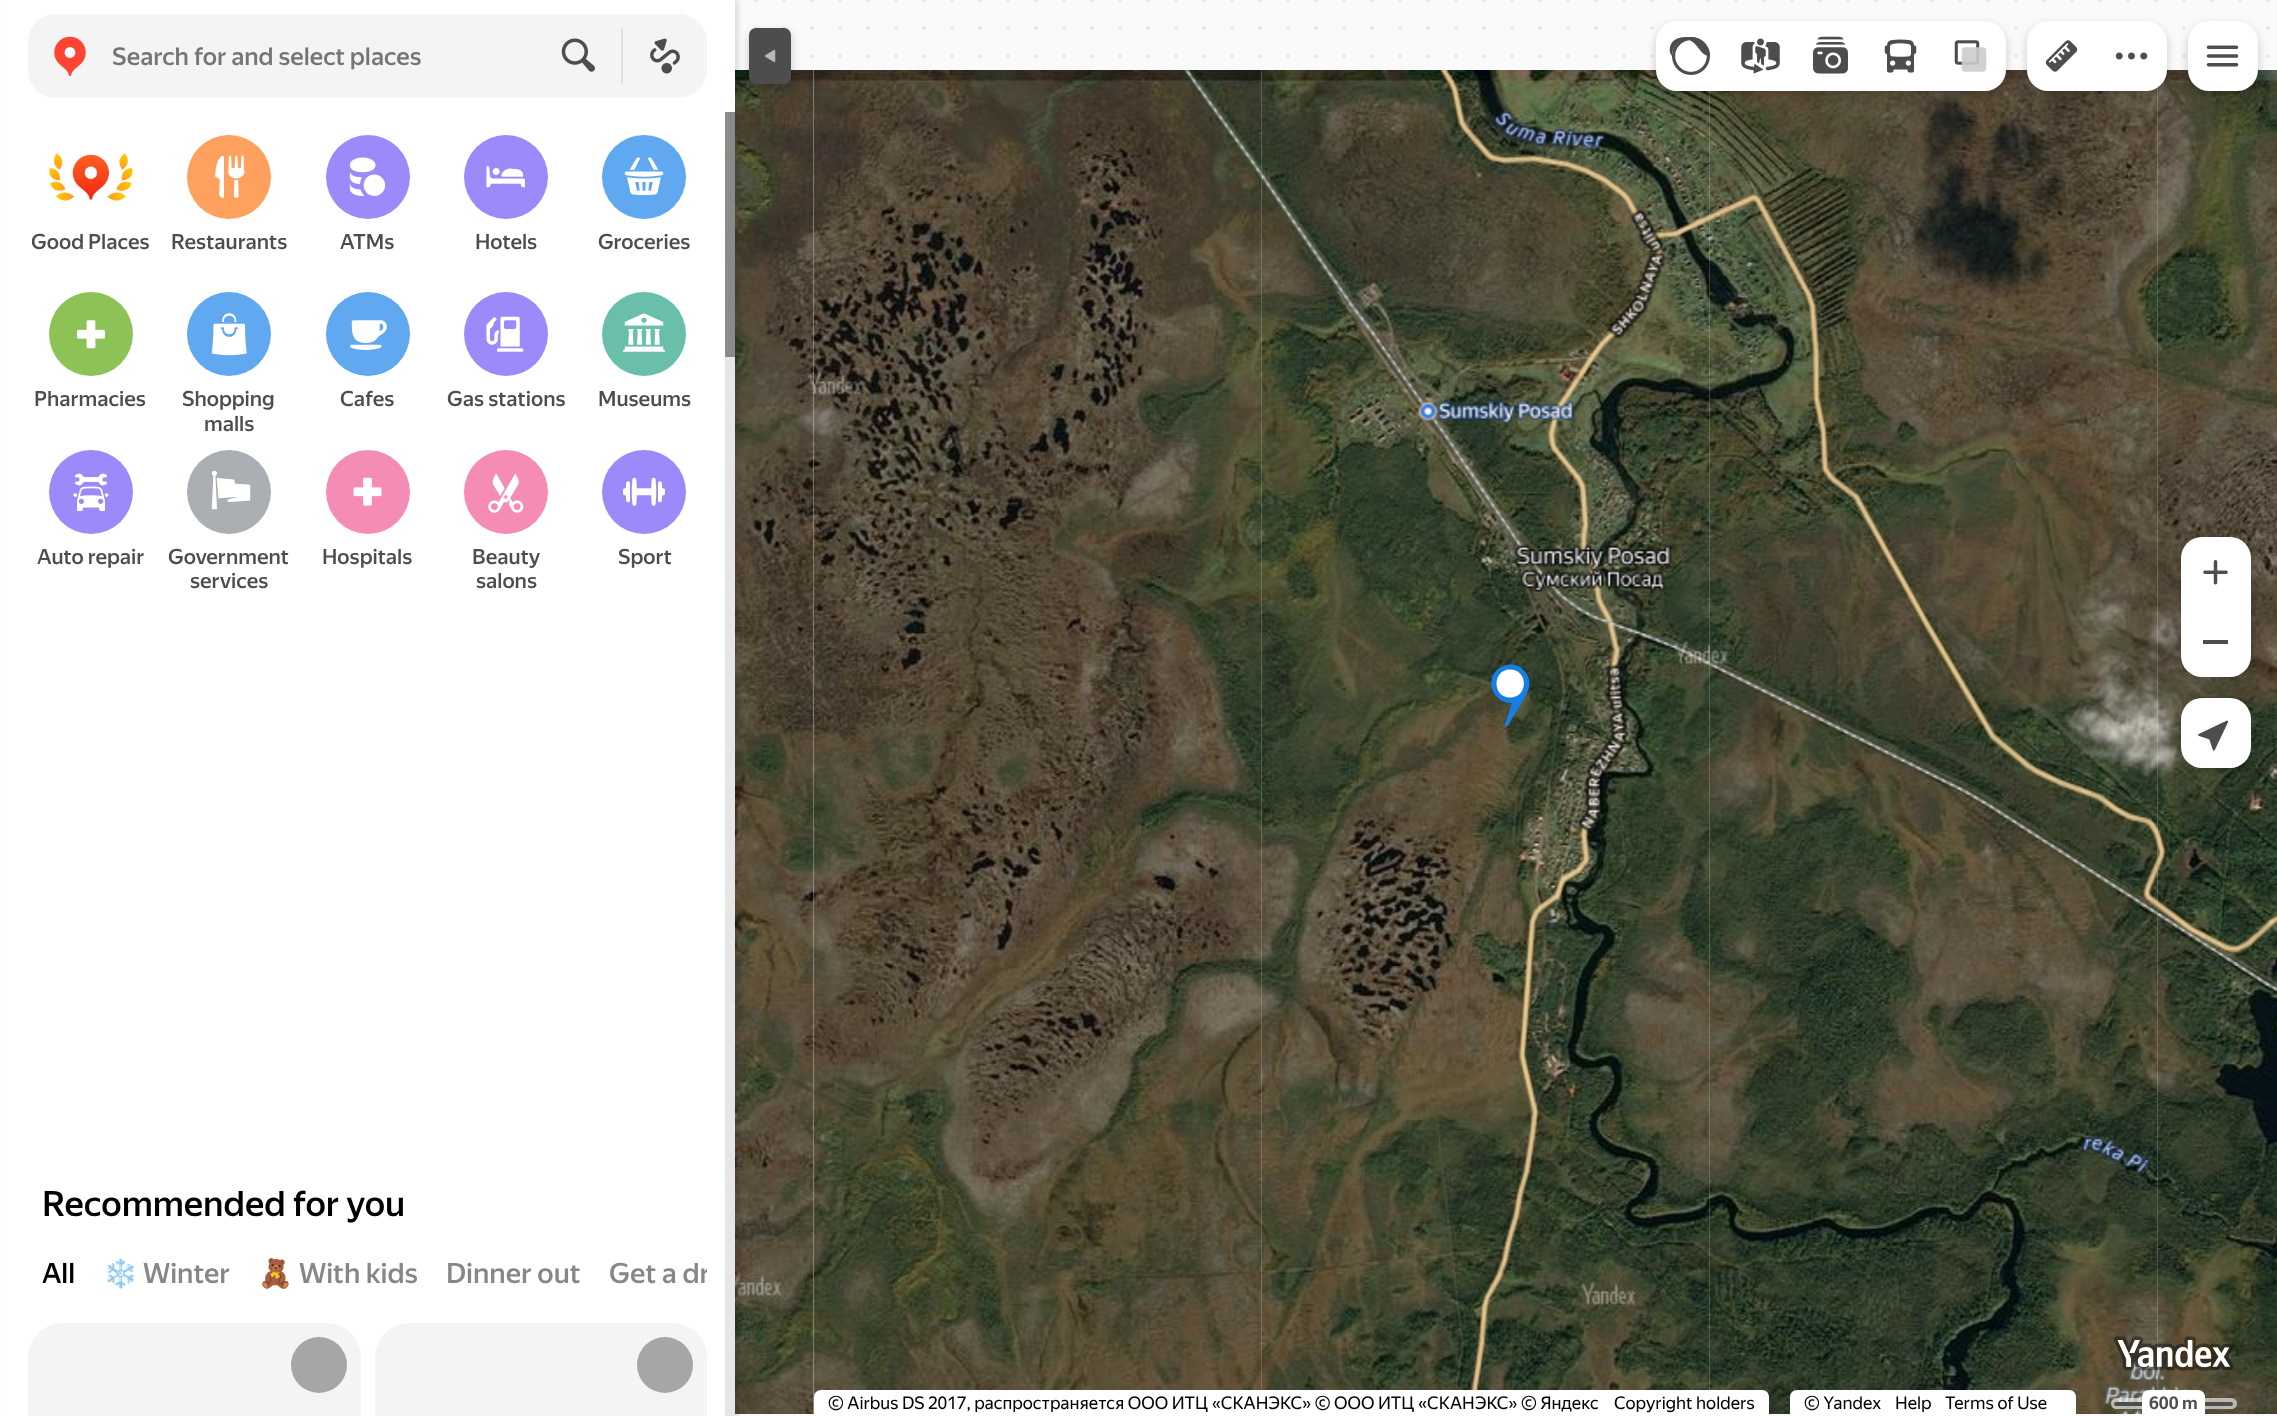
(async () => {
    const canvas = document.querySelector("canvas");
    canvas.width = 2277;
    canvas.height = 1416;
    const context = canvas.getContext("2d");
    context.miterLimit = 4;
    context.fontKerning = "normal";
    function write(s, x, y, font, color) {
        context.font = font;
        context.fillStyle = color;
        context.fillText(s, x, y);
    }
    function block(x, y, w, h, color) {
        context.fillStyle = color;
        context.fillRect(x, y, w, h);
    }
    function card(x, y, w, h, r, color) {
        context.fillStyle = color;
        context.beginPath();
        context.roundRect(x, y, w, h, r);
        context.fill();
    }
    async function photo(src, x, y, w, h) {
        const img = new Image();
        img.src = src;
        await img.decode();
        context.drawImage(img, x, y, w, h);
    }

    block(0, 0, 2277, 1416, "rgb(255, 255, 255)");
    await photo("media/1.png", 735, 0, 1542, 1416);
    await photo("media/34.png", 1261, 70, 449, 448);
    await photo("media/33.png", 813, 70, 449, 448);
    await photo("media/32.png", 735, 70, 79, 448);
    await photo("media/39.png", 1261, 518, 449, 448);
    await photo("media/38.png", 813, 518, 449, 448);
    await photo("media/37.png", 735, 518, 79, 448);
    await photo("media/43.png", 813, 966, 449, 448);
    await photo("media/42.png", 735, 966, 79, 448);
    context.fillStyle = "rgba(0, 0, 0, 0.1)";
    context.filter = "blur(2px)";
    context.beginPath();
    context.rect(4, 0, 735, 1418);
    context.fill();
    context.filter = "none";
    context.fillStyle = "rgba(0, 0, 0, 0.2)";
    context.filter = "blur(5px)";
    context.beginPath();
    context.roundRect(749, 32, 42, 56, 7);
    context.fill();
    context.filter = "none";
    block(1, 0, 734, 1416, "rgb(255, 255, 255)");
    card(28, 14, 679, 84, 28, "rgb(244, 244, 244)");
    await photo("media/2.png", 54, 36, 32, 41);
    write("Search for and select places", 112, 65, "500 24.5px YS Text", "rgb(117, 117, 117)");
    await photo("media/3.png", 561, 38, 34, 34);
    block(621, 28, 2, 56, "rgb(224, 224, 224)");
    await photo("media/4.png", 650, 38, 30, 36);
    await photo("media/35.png", 1709, 70, 449, 448);
    await photo("media/47.png", 1184, 70, 78, 108);
    await photo("media/48.png", 1261, 70, 449, 448);
    context.fillStyle = "rgba(0, 0, 0, 0.2)";
    context.filter = "blur(5px)";
    context.beginPath();
    context.roundRect(1656, 25, 350, 70, 21);
    context.fill();
    context.filter = "none";
    context.fillStyle = "rgb(255, 255, 255)";
    context.beginPath();
    context.roundRect(1656, 21, 70, 70, [21, 0, 0, 21]);
    context.fill();
    await photo("media/5.png", 1669, 37, 41, 38);
    block(1726, 21, 210, 70, "rgb(255, 255, 255)");
    await photo("media/6.png", 1741, 38, 39, 36);
    context.beginPath();
    context.roundRect(1936, 21, 70, 70, [0, 21, 21, 0]);
    context.fill();
    await photo("media/7.png", 1954, 40, 33, 32);
    await photo("media/8.png", 1813, 36, 35, 38);
    await photo("media/9.png", 1884, 39, 33, 34);
    await photo("media/36.png", 2157, 70, 120, 448);
    context.fillStyle = "rgba(0, 0, 0, 0.2)";
    context.filter = "blur(5px)";
    context.beginPath();
    context.roundRect(2027, 25, 140, 70, 21);
    context.fill();
    context.filter = "none";
    context.fillStyle = "rgb(255, 255, 255)";
    context.beginPath();
    context.roundRect(2027, 21, 70, 70, [21, 0, 0, 21]);
    context.fill();
    await photo("media/10.png", 2045, 40, 33, 32);
    context.beginPath();
    context.roundRect(2097, 21, 70, 70, [0, 21, 21, 0]);
    context.fill();
    await photo("media/11.png", 2115, 52, 33, 8);
    context.fillStyle = "rgba(0, 0, 0, 0.2)";
    context.filter = "blur(5px)";
    context.beginPath();
    context.roundRect(2188, 25, 70, 70, 21);
    context.fill();
    context.filter = "none";
    card(2188, 21, 70, 70, 21, "rgb(255, 255, 255)");
    await photo("media/12.png", 2206, 45, 33, 22);
    await photo("media/40.png", 1709, 518, 449, 448);
    await photo("media/41.png", 2157, 518, 120, 448);
    context.fillStyle = "rgba(0, 0, 0, 0.2)";
    context.filter = "blur(5px)";
    context.beginPath();
    context.roundRect(2181, 541, 70, 140, 21);
    context.fill();
    context.filter = "none";
    context.fillStyle = "rgb(255, 255, 255)";
    context.beginPath();
    context.roundRect(2181, 537, 70, 70, [21, 21, 0, 0]);
    context.fill();
    await photo("media/13.png", 2203, 560, 25, 25);
    context.beginPath();
    context.roundRect(2181, 607, 70, 70, [0, 0, 21, 21]);
    context.fill();
    block(2203, 640, 25, 4, "rgb(77, 77, 77)");
    context.fillStyle = "rgba(0, 0, 0, 0.2)";
    context.filter = "blur(5px)";
    context.beginPath();
    context.roundRect(2181, 702, 70, 70, 21);
    context.fill();
    context.filter = "none";
    card(2181, 698, 70, 70, 21, "rgb(255, 255, 255)");
    await photo("media/14.png", 2198, 720, 31, 31);
    card(749, 28, 42, 56, 7, "rgb(77, 77, 77)");
    await photo("media/15.png", 764, 49, 12, 14);
    await photo("media/16.png", 49, 153, 84, 48);
    context.save();
    context.beginPath();
    context.rect(32, 229, 119, 25);
    context.clip();
    write("Good", 31, 249, "500 21px YS Text", "rgb(77, 77, 77)");
    context.restore();
    write("Places", 88, 249, "500 21px YS Text", "rgb(77, 77, 77)");
    context.fillStyle = "rgb(255, 161, 94)";
    context.beginPath();
    context.arc(229, 177, 42, 0, Math.PI * 2);
    context.fill();
    await photo("media/17.png", 215, 155, 30, 43);
    write("Restaurants", 171, 249, "500 21px YS Text", "rgb(77, 77, 77)");
    context.fillStyle = "rgb(156, 137, 250)";
    context.beginPath();
    context.arc(368, 177, 42, 0, Math.PI * 2);
    context.fill();
    await photo("media/18.png", 349, 157, 37, 39);
    write("ATMs", 340, 249, "500 21px YS Text", "rgb(77, 77, 77)");
    context.fillStyle = "rgb(156, 137, 250)";
    context.beginPath();
    context.arc(506, 177, 42, 0, Math.PI * 2);
    context.fill();
    await photo("media/19.png", 486, 166, 39, 22);
    write("Hotels", 475, 249, "500 21px YS Text", "rgb(77, 77, 77)");
    context.fillStyle = "rgb(96, 168, 240)";
    context.beginPath();
    context.arc(644, 177, 42, 0, Math.PI * 2);
    context.fill();
    await photo("media/20.png", 624, 157, 40, 39);
    write("Groceries", 598, 249, "500 21px YS Text", "rgb(77, 77, 77)");
    context.fillStyle = "rgb(141, 194, 87)";
    context.beginPath();
    context.arc(91, 334, 42, 0, Math.PI * 2);
    context.fill();
    await photo("media/21.png", 77, 320, 28, 29);
    write("Pharmacies", 34, 406, "500 21px YS Text", "rgb(77, 77, 77)");
    context.fillStyle = "rgb(96, 168, 240)";
    context.beginPath();
    context.arc(229, 334, 42, 0, Math.PI * 2);
    context.fill();
    await photo("media/22.png", 211, 313, 36, 43);
    write("Shopping", 182, 406, "500 21px YS Text", "rgb(77, 77, 77)");
    write("malls", 204, 431, "500 21px YS Text", "rgb(77, 77, 77)");
    context.fillStyle = "rgb(96, 168, 240)";
    context.beginPath();
    context.arc(368, 334, 42, 0, Math.PI * 2);
    context.fill();
    await photo("media/23.png", 350, 320, 37, 30);
    write("Cafes", 340, 406, "500 21px YS Text", "rgb(77, 77, 77)");
    context.fillStyle = "rgb(156, 137, 250)";
    context.beginPath();
    context.arc(506, 334, 42, 0, Math.PI * 2);
    context.fill();
    await photo("media/24.png", 486, 316, 38, 36);
    write("Gas stations", 447, 406, "500 21px YS Text", "rgb(77, 77, 77)");
    context.fillStyle = "rgb(105, 191, 170)";
    context.beginPath();
    context.arc(644, 334, 42, 0, Math.PI * 2);
    context.fill();
    await photo("media/25.png", 623, 313, 42, 39);
    write("Museums", 598, 406, "500 21px YS Text", "rgb(77, 77, 77)");
    context.fillStyle = "rgb(156, 137, 250)";
    context.beginPath();
    context.arc(91, 492, 42, 0, Math.PI * 2);
    context.fill();
    await photo("media/26.png", 73, 473, 36, 38);
    write("Auto repair", 37, 564, "500 21px YS Text", "rgb(77, 77, 77)");
    context.fillStyle = "rgb(171, 174, 178)";
    context.beginPath();
    context.arc(229, 492, 42, 0, Math.PI * 2);
    context.fill();
    await photo("media/27.png", 211, 470, 40, 40);
    write("Government", 168, 564, "500 21px YS Text", "rgb(77, 77, 77)");
    write("services", 190, 588, "500 21px YS Text", "rgb(77, 77, 77)");
    context.fillStyle = "rgb(245, 140, 182)";
    context.beginPath();
    context.arc(368, 492, 42, 0, Math.PI * 2);
    context.fill();
    await photo("media/28.png", 353, 477, 29, 29);
    write("Hospitals", 322, 564, "500 21px YS Text", "rgb(77, 77, 77)");
    context.fillStyle = "rgb(245, 140, 182)";
    context.beginPath();
    context.arc(506, 492, 42, 0, Math.PI * 2);
    context.fill();
    await photo("media/29.png", 488, 473, 36, 40);
    write("Beauty", 472, 564, "500 21px YS Text", "rgb(77, 77, 77)");
    write("salons", 476, 588, "500 21px YS Text", "rgb(77, 77, 77)");
    context.fillStyle = "rgb(156, 137, 250)";
    context.beginPath();
    context.arc(644, 492, 42, 0, Math.PI * 2);
    context.fill();
    await photo("media/30.png", 623, 477, 42, 29);
    write("Sport", 618, 564, "500 21px YS Text", "rgb(77, 77, 77)");
    write("Recommended for you", 42, 1216, "500 35px YS Text", "rgb(0, 0, 0)");
    write("All", 42, 1283, "500 28px YS Text", "rgb(0, 0, 0)");
    write("❄️", 103, 1283, "28px Noto Color Emoji", "rgb(135, 135, 135)");
    write("Winter", 143, 1283, "500 28px YS Text", "rgb(135, 135, 135)");
    write("🧸", 258, 1283, "28px Noto Color Emoji", "rgb(135, 135, 135)");
    write("With kids", 299, 1283, "500 28px YS Text", "rgb(135, 135, 135)");
    write("Dinner out", 446, 1283, "500 28px YS Text", "rgb(135, 135, 135)");
    context.save();
    context.beginPath();
    context.rect(28, 1239, 679, 70);
    context.clip();
    write("Get a dr", 609, 1283, "500 28px YS Text", "rgb(135, 135, 135)");
    context.restore();
    context.fillStyle = "rgb(244, 244, 244)";
    context.beginPath();
    context.moveTo(63, 1323);
    context.lineTo(326, 1323);
    context.bezierCurveTo(345.5, 1323, 361, 1338.5, 361, 1358);
    context.lineTo(361, 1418);
    context.lineTo(28, 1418);
    context.lineTo(28, 1358);
    context.bezierCurveTo(28, 1338.5, 43.5, 1323, 63, 1323);
    context.closePath();
    context.fill();
    context.fillStyle = "rgb(166, 166, 166)";
    context.beginPath();
    context.arc(319, 1365, 28, 0, Math.PI * 2);
    context.fill();
    context.fillStyle = "rgb(244, 244, 244)";
    context.beginPath();
    context.moveTo(410, 1323);
    context.lineTo(672, 1323);
    context.bezierCurveTo(691.5, 1323, 707, 1338.5, 707, 1358);
    context.lineTo(707, 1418);
    context.lineTo(375, 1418);
    context.lineTo(375, 1358);
    context.bezierCurveTo(375, 1338.5, 390.5, 1323, 410, 1323);
    context.closePath();
    context.fill();
    context.fillStyle = "rgb(166, 166, 166)";
    context.beginPath();
    context.arc(665, 1365, 28, 0, Math.PI * 2);
    context.fill();
    block(725, 112, 10, 245, "rgb(138, 138, 138)");
    block(725, 357, 10, 1059, "rgb(230, 230, 230)");
    await photo("media/44.png", 1261, 966, 449, 424);
    await photo("media/45.png", 1709, 966, 449, 448);
    await photo("media/46.png", 2157, 966, 120, 448);
    await photo("media/54.png", 2082, 1137, 76, 277);
    await photo("media/55.png", 2157, 966, 120, 424);
    await photo("media/31.png", 2114, 1336, 120, 35);
    context.fillStyle = "rgb(255, 255, 255)";
    context.beginPath();
    context.moveTo(821, 1390);
    context.lineTo(1762, 1390);
    context.bezierCurveTo(1766, 1390, 1769, 1393, 1769, 1397);
    context.lineTo(1769, 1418);
    context.lineTo(814, 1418);
    context.lineTo(814, 1397);
    context.bezierCurveTo(814, 1393, 817, 1390, 821, 1390);
    context.closePath();
    context.fill();
    write("© Airbus DS 2017, распространяется ООО ИТЦ «СКАНЭКС» © ООО ИТЦ «СКАНЭКС» © Яндекс", 828, 1409, "17.5px YS Text", "rgb(0, 0, 0)");
    write("Copyright holders", 1614, 1409, "17.5px YS Text", "rgb(0, 0, 0)");
    context.fillStyle = "rgb(255, 255, 255)";
    context.beginPath();
    context.moveTo(1797, 1390);
    context.lineTo(2069, 1390);
    context.bezierCurveTo(2073, 1390, 2076, 1393, 2076, 1397);
    context.lineTo(2076, 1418);
    context.lineTo(1790, 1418);
    context.lineTo(1790, 1397);
    context.bezierCurveTo(1790, 1393, 1793, 1390, 1797, 1390);
    context.closePath();
    context.fill();
    write("© Yandex", 1804, 1409, "17.5px YS Text", "rgb(0, 0, 0)");
    write("Help", 1895, 1409, "17.5px YS Text", "rgb(0, 0, 0)");
    write("Terms of Use", 1945, 1409, "17.5px YS Text", "rgb(0, 0, 0)");
    card(2111, 1398, 126, 11, 5.5, "rgba(255, 255, 255, 0.6)");
    card(2114, 1402, 119, 4, 2, "rgb(77, 77, 77)");
    context.fillStyle = "rgb(255, 255, 255)";
    context.beginPath();
    context.moveTo(2149, 1390);
    context.lineTo(2198, 1390);
    context.bezierCurveTo(2202, 1390, 2205, 1393, 2205, 1397);
    context.lineTo(2205, 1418);
    context.lineTo(2142, 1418);
    context.lineTo(2142, 1397);
    context.bezierCurveTo(2142, 1393, 2145, 1390, 2149, 1390);
    context.closePath();
    context.fill();
    write("600 m", 2149, 1409, "bold 17.5px YS Text", "rgb(77, 77, 77)");
    await photo("media/49.png", 1709, 193, 163, 325);
    await photo("media/50.png", 1499, 518, 211, 448);
    await photo("media/51.png", 1709, 518, 449, 398);
    await photo("media/52.png", 2157, 829, 120, 137);
    await photo("media/53.png", 1470, 966, 69, 424);
    context.fillStyle = "rgb(23, 126, 230)";
    context.beginPath();
    context.moveTo(1512, 703);
    context.lineTo(1511, 703);
    context.bezierCurveTo(1503, 703, 1496, 698, 1493, 691);
    context.bezierCurveTo(1484, 670, 1513, 654, 1526, 673);
    context.bezierCurveTo(1533, 683, 1528, 692, 1523, 701);
    context.lineTo(1510, 722);
    context.bezierCurveTo(1510, 722, 1507, 728, 1505, 727);
    context.bezierCurveTo(1504, 726, 1507, 719, 1507, 718);
    context.closePath();
    context.fill();
    context.fillStyle = "rgb(255, 255, 255)";
    context.beginPath();
    context.moveTo(1510, 697.5);
    context.bezierCurveTo(1528.5, 697.5, 1528.5, 669.5, 1510, 669.5);
    context.bezierCurveTo(1492, 669.5, 1492, 697.5, 1510, 697.5);
    context.closePath();
    context.fill();
})();
